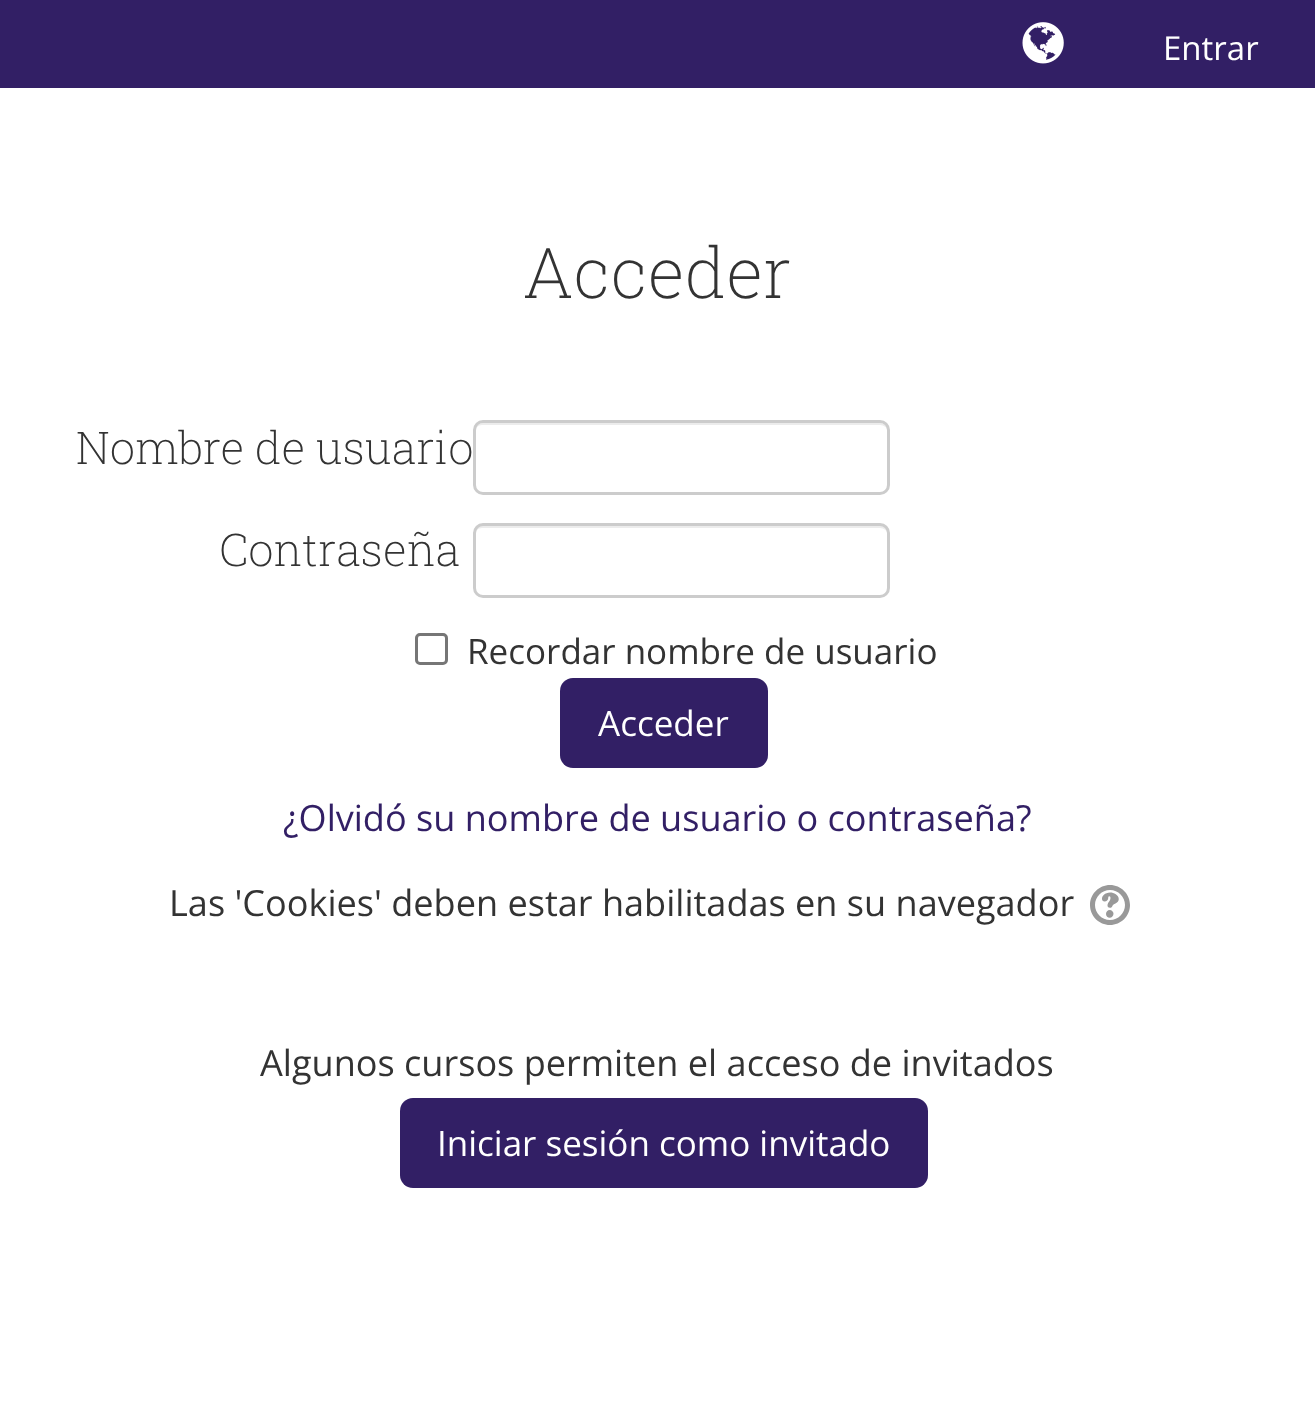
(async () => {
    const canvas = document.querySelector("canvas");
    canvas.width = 1315;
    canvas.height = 1407;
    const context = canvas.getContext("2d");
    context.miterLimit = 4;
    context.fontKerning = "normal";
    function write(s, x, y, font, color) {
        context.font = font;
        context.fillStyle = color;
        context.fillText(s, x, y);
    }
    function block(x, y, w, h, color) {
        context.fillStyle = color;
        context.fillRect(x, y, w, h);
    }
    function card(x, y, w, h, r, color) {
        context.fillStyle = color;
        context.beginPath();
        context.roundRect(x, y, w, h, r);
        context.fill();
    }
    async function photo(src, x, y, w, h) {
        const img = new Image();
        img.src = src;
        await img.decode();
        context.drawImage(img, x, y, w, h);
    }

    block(0, 0, 1315, 1407, "rgb(255, 255, 255)");
    block(0, 0, 1315, 88, "rgb(50, 31, 101)");
    await photo("media/1.png", 1022, 22, 42, 42);
    write("Entrar", 1163, 60, "33px Open Sans", "rgb(255, 255, 255)");
    write("Acceder", 523, 298, "200 70px Roboto Slab", "rgb(51, 51, 51)");
    write("Nombre de usuario", 76, 464, "200 45px Roboto Slab", "rgb(51, 51, 51)");
    context.fillStyle = "rgb(236, 236, 236)";
    context.beginPath();
    context.moveTo(482, 425);
    context.lineTo(880, 425);
    context.bezierCurveTo(884, 425, 888, 428, 888, 432);
    context.lineTo(888, 431);
    context.bezierCurveTo(888, 427, 884, 423, 880, 423);
    context.lineTo(483, 423);
    context.bezierCurveTo(479, 423, 475, 427, 475, 431);
    context.lineTo(475, 432);
    context.bezierCurveTo(475, 428, 478, 425, 482, 425);
    context.closePath();
    context.fill();
    context.beginPath();
    context.roundRect(474.5, 421.5, 414, 72, 8.5);
    context.strokeStyle = "rgb(204, 204, 204)";
    context.lineWidth = 3;
    context.stroke();
    write("Contraseña", 219, 566, "200 45px Roboto Slab", "rgb(51, 51, 51)");
    context.fillStyle = "rgb(236, 236, 236)";
    context.beginPath();
    context.moveTo(482, 528);
    context.lineTo(880, 528);
    context.bezierCurveTo(884, 528, 888, 531, 888, 535);
    context.lineTo(888, 533);
    context.bezierCurveTo(888, 529, 884, 525, 880, 525);
    context.lineTo(483, 525);
    context.bezierCurveTo(479, 525, 475, 529, 475, 533);
    context.lineTo(475, 535);
    context.bezierCurveTo(475, 531, 478, 528, 482, 528);
    context.closePath();
    context.fill();
    context.beginPath();
    context.roundRect(474.5, 524.5, 414, 72, 8.5);
    context.stroke();
    context.beginPath();
    context.roundRect(416.5, 634.5, 30, 29, 3.5);
    context.strokeStyle = "rgb(118, 118, 118)";
    context.stroke();
    write("Recordar nombre de usuario", 467, 664, "35px Open Sans", "rgb(51, 51, 51)");
    card(560, 678, 208, 90, 13, "rgb(50, 31, 101)");
    write("Acceder", 598, 736, "35px Open Sans", "rgb(255, 255, 255)");
    write("¿Olvidó su nombre de usuario o contraseña?", 283, 831, "36.1px Open Sans", "rgb(50, 31, 101)");
    write("Las 'Cookies' deben estar habilitadas en su navegador", 169, 916, "36.1px Open Sans", "rgb(51, 51, 51)");
    await photo("media/2.png", 1090, 885, 40, 40);
    write("Algunos cursos permiten el acceso de invitados", 260, 1076, "36.1px Open Sans", "rgb(51, 51, 51)");
    card(400, 1098, 528, 90, 13, "rgb(50, 31, 101)");
    write("Iniciar sesión como invitado", 437, 1156, "35px Open Sans", "rgb(255, 255, 255)");
})();
